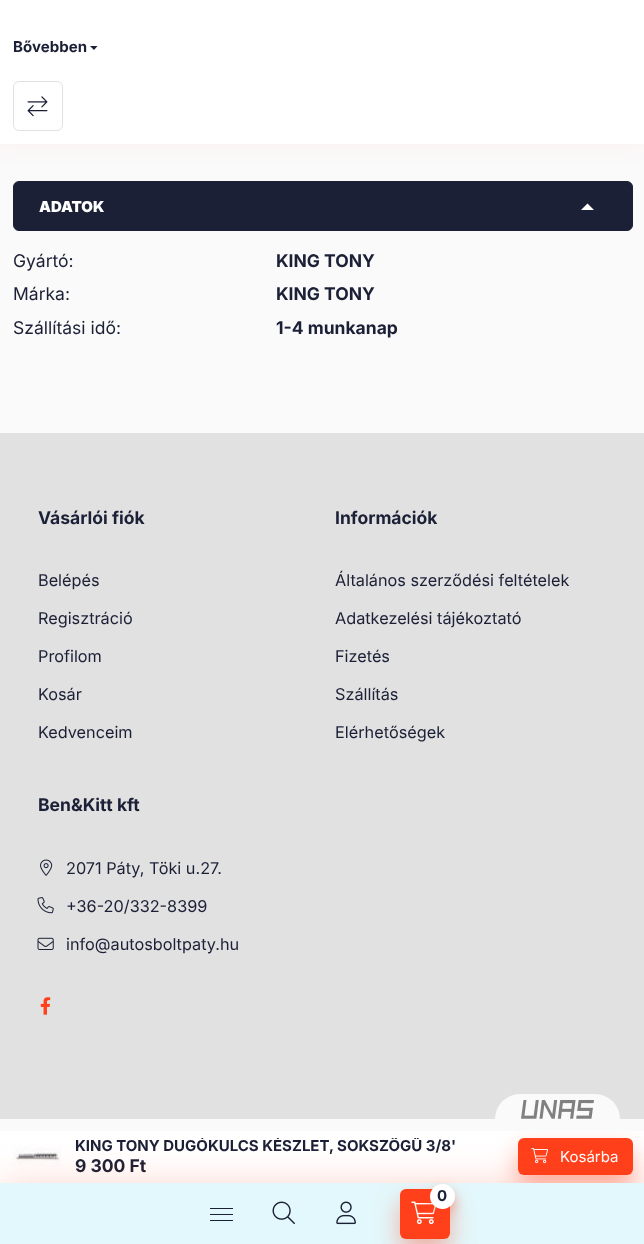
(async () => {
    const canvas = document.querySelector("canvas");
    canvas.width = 644;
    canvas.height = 1244;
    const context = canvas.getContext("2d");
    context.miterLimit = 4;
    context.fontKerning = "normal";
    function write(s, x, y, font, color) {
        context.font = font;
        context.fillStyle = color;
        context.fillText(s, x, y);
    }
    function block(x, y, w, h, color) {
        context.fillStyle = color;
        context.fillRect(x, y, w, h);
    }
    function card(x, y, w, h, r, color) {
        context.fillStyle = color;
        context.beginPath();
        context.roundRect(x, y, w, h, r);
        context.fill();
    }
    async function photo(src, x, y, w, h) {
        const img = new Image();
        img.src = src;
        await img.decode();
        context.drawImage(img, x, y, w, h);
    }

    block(0, 0, 644, 1244, "rgb(250, 250, 250)");
    context.fillStyle = "rgba(255, 64, 27, 0.05)";
    context.filter = "blur(12.5px)";
    context.beginPath();
    context.rect(0, -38, 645, 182);
    context.fill();
    context.filter = "none";
    block(0, 0, 644, 144, "rgb(255, 255, 255)");
    write("Bővebben", 13, 52, "bold 15px Inter", "rgb(27, 32, 54)");
    context.beginPath();
    context.moveTo(90, 46);
    context.lineTo(97.5, 46);
    context.lineTo(94, 50);
    context.closePath();
    context.fill();
    context.beginPath();
    context.roundRect(13.5, 81.5, 49, 49, 5.5);
    context.strokeStyle = "rgb(225, 225, 225)";
    context.stroke();
    await photo("media/1.png", 27, 96, 21, 21);
    context.beginPath();
    context.roundRect(13.5, 181.5, 619, 49, 5.5);
    context.fill();
    context.strokeStyle = "rgb(27, 32, 54)";
    context.stroke();
    write("ADATOK", 39, 212, "900 15px Inter", "rgb(255, 255, 255)");
    context.beginPath();
    context.moveTo(581, 210);
    context.lineTo(594, 210);
    context.lineTo(587.5, 203.5);
    context.closePath();
    context.fill();
    write("Gyártó:", 13, 267, "17.5px Inter", "rgb(27, 32, 54)");
    write("KING TONY", 276, 267, "bold 17.5px Inter", "rgb(27, 32, 54)");
    write("Márka:", 13, 300, "17.5px Inter", "rgb(27, 32, 54)");
    write("KING TONY", 276, 300, "bold 17.5px Inter", "rgb(27, 32, 54)");
    write("Szállítási idő:", 13, 334, "17.5px Inter", "rgb(27, 32, 54)");
    write("1-4 munkanap", 276, 334, "bold 17.5px Inter", "rgb(27, 32, 54)");
    block(0, 1131, 644, 52, "rgb(255, 255, 255)");
    await photo("media/2.png", 12, 1147, 49, 19);
    context.save();
    context.beginPath();
    context.rect(75, 1138, 430, 17);
    context.clip();
    write("KING TONY DUGÓKULCS KÉSZLET, SOKSZÖGŰ 3/8'", 75, 1151, "bold 15px Inter", "rgb(27, 32, 54)");
    context.restore();
    write("9 300 Ft", 75, 1172, "bold 17.5px Inter", "rgb(27, 32, 54)");
    block(0, 433, 644, 686, "rgb(225, 225, 225)");
    context.fillStyle = "rgb(250, 250, 250)";
    context.beginPath();
    context.roundRect(495, 1094, 125, 25, [25, 25, 0, 0]);
    context.fill();
    await photo("media/8.png", 521, 1100, 73, 19);
    context.save();
    context.beginPath();
    context.rect(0, 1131, 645, 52);
    context.clip();
    context.fillStyle = "rgba(255, 64, 27, 0.4)";
    context.filter = "blur(12.5px)";
    context.beginPath();
    context.roundRect(518, 1150, 115, 38, 6);
    context.fill();
    context.filter = "none";
    context.restore();
    card(518, 1138, 115, 37, 6, "rgb(255, 64, 27)");
    await photo("media/3.png", 531, 1148, 17, 16);
    write("Kosárba", 560, 1162, "15px Inter", "rgb(255, 255, 255)");
    write("Vásárlói fiók", 38, 524, "bold 17.5px Inter", "rgb(27, 32, 54)");
    write("Belépés", 38, 586, "16.25px Inter", "rgb(27, 32, 54)");
    write("Regisztráció", 38, 624, "16.25px Inter", "rgb(27, 32, 54)");
    write("Profilom", 38, 662, "16.25px Inter", "rgb(27, 32, 54)");
    write("Kosár", 38, 700, "16.25px Inter", "rgb(27, 32, 54)");
    write("Kedvenceim", 38, 738, "16.25px Inter", "rgb(27, 32, 54)");
    write("Információk", 335, 524, "bold 17.5px Inter", "rgb(27, 32, 54)");
    write("Általános szerződési feltételek", 335, 586, "16.25px Inter", "rgb(27, 32, 54)");
    write("Adatkezelési tájékoztató", 335, 624, "16.25px Inter", "rgb(27, 32, 54)");
    write("Fizetés", 335, 662, "16.25px Inter", "rgb(27, 32, 54)");
    write("Szállítás", 335, 700, "16.25px Inter", "rgb(27, 32, 54)");
    write("Elérhetőségek", 335, 738, "16.25px Inter", "rgb(27, 32, 54)");
    write("Ben&Kitt kft", 38, 811, "bold 17.5px Inter", "rgb(27, 32, 54)");
    await photo("media/4.png", 40, 859, 13, 17);
    write("2071 Páty, Töki u.27.", 66, 874, "16.25px Inter", "rgb(27, 32, 54)");
    await photo("media/5.png", 37, 897, 17, 17);
    write("+36-20/332-8399", 66, 912, "16.25px Inter", "rgb(27, 32, 54)");
    await photo("media/6.png", 37, 937, 17, 13);
    write("info@autosboltpaty.hu", 66, 950, "16.25px Inter", "rgb(27, 32, 54)");
    await photo("media/7.png", 40, 997, 11, 18);
    context.fillStyle = "rgba(255, 64, 27, 0.2)";
    context.filter = "blur(19px)";
    context.beginPath();
    context.rect(0, 1183, 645, 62);
    context.fill();
    context.filter = "none";
    block(0, 1183, 644, 61, "rgb(227, 248, 252)");
    context.fillStyle = "rgba(255, 64, 27, 0.4)";
    context.filter = "blur(12.5px)";
    context.beginPath();
    context.roundRect(400, 1201, 50, 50, 6);
    context.fill();
    context.filter = "none";
    card(400, 1189, 50, 50, 6, "rgb(255, 64, 27)");
    await photo("media/9.png", 411, 1201, 25, 23);
    context.fillStyle = "rgba(255, 64, 27, 0.4)";
    context.filter = "blur(6px)";
    context.beginPath();
    context.roundRect(430, 1190, 25, 25, 12.5);
    context.fill();
    context.filter = "none";
    context.fillStyle = "rgb(255, 255, 255)";
    context.beginPath();
    context.arc(442.5, 1196.5, 12.5, 0, Math.PI * 2);
    context.fill();
    write("0", 437, 1201, "bold 15px Inter", "rgb(27, 32, 54)");
    block(210, 1208, 23, 1, "rgb(27, 32, 54)");
    block(210, 1214, 23, 1, "rgb(27, 32, 54)");
    block(210, 1220, 23, 1, "rgb(27, 32, 54)");
    await photo("media/10.png", 272, 1201, 23, 23);
    await photo("media/11.png", 336, 1201, 20, 24);
})();
